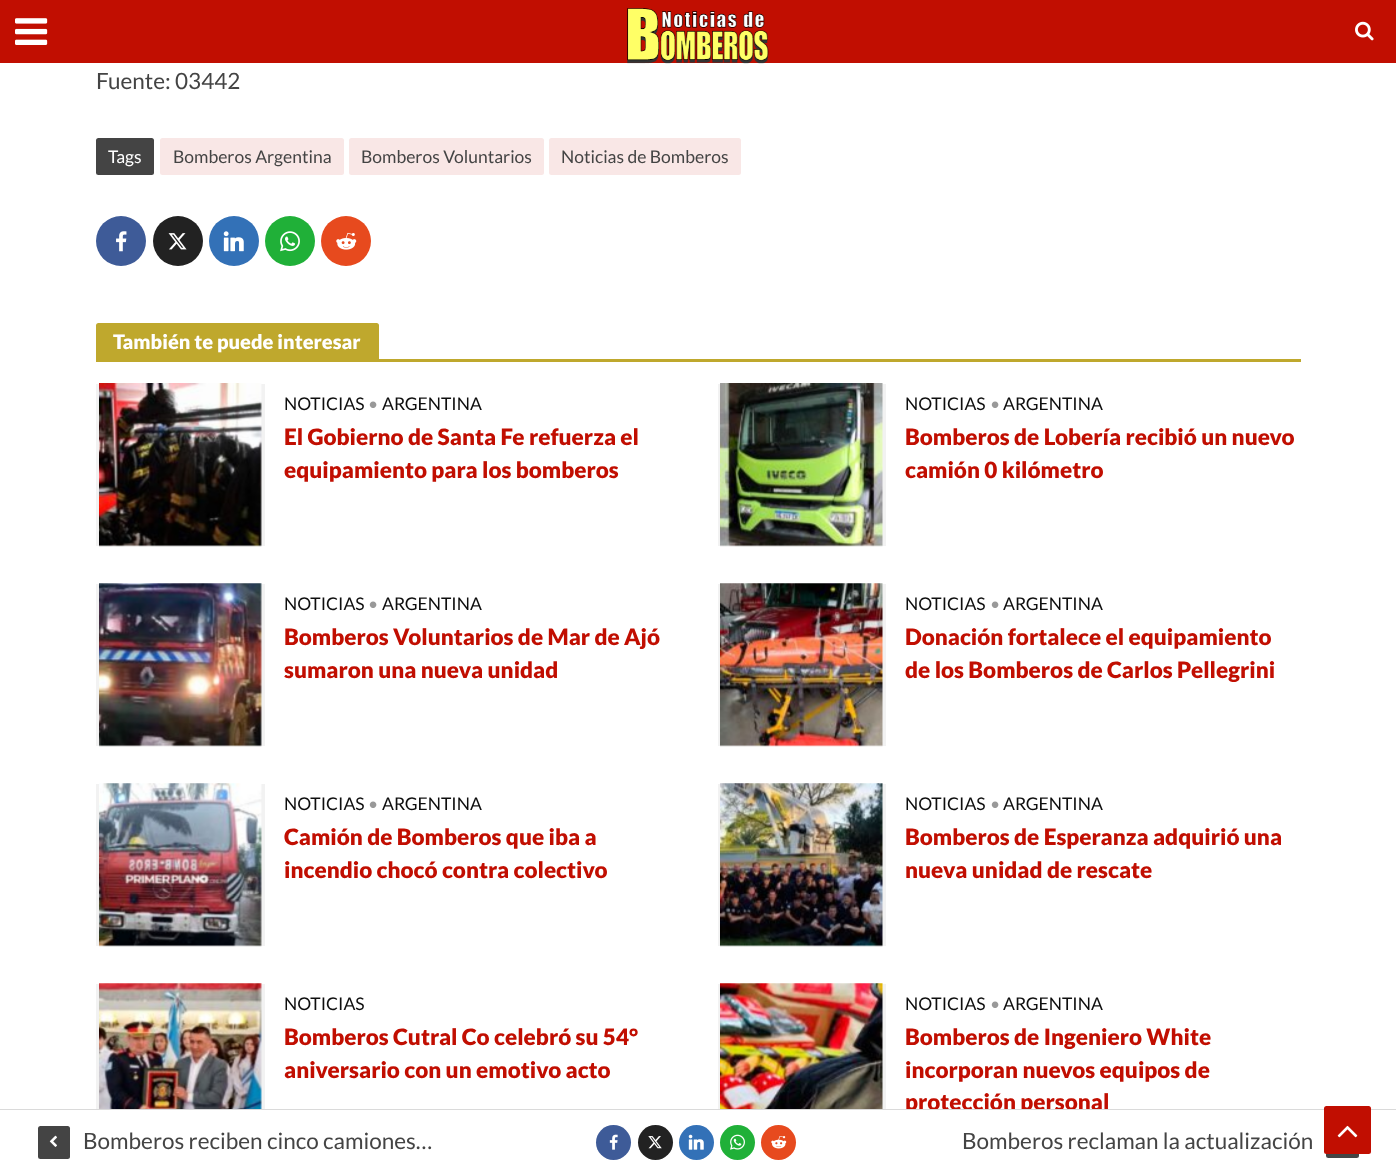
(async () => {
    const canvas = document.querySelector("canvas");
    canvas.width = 1396;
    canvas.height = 1171;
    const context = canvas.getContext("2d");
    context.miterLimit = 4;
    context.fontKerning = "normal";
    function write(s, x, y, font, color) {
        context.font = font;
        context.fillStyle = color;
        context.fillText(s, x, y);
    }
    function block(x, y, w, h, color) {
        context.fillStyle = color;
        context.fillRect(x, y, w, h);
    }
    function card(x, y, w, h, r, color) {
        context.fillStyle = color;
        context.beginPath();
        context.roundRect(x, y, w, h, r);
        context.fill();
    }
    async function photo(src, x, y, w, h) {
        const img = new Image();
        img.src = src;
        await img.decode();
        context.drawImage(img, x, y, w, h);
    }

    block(0, 0, 1396, 1171, "rgb(255, 255, 255)");
    block(0, 0, 1396, 63, "rgb(193, 14, 1)");
    await photo("media/1.png", 15, 18, 33, 27);
    await photo("media/2.png", 627, 8, 142, 56);
    await photo("media/3.png", 1355, 21, 19, 20);
    write("Fuente: 03442", 96, 89, "22.5px Lato", "rgb(68, 68, 68)");
    card(96, 138, 58, 37, 2.5, "rgb(68, 68, 68)");
    write("Tags", 108, 163, "17.5px Lato", "rgb(255, 255, 255)");
    card(160, 138, 184, 37, 2.5, "rgb(249, 231, 230)");
    write("Bomberos Argentina", 173, 163, "17.5px Lato", "rgb(68, 68, 68)");
    card(349, 138, 195, 37, 2.5, "rgb(249, 231, 230)");
    write("Bomberos Voluntarios", 361, 163, "17.5px Lato", "rgb(68, 68, 68)");
    card(549, 138, 192, 37, 2.5, "rgb(249, 231, 230)");
    write("Noticias de Bomberos", 561, 163, "17.5px Lato", "rgb(68, 68, 68)");
    context.fillStyle = "rgb(62, 91, 152)";
    context.beginPath();
    context.arc(121, 241, 25, 0, Math.PI * 2);
    context.fill();
    await photo("media/4.png", 116, 231, 11, 21);
    context.fillStyle = "rgb(34, 34, 34)";
    context.beginPath();
    context.arc(178, 241, 25, 0, Math.PI * 2);
    context.fill();
    await photo("media/5.png", 168, 233, 19, 17);
    context.fillStyle = "rgb(51, 113, 183)";
    context.beginPath();
    context.arc(234, 241, 25, 0, Math.PI * 2);
    context.fill();
    await photo("media/6.png", 223, 231, 21, 21);
    context.fillStyle = "rgb(32, 176, 56)";
    context.beginPath();
    context.arc(290, 241, 25, 0, Math.PI * 2);
    context.fill();
    await photo("media/7.png", 280, 231, 20, 21);
    context.fillStyle = "rgb(231, 74, 30)";
    context.beginPath();
    context.arc(346, 241, 25, 0, Math.PI * 2);
    context.fill();
    await photo("media/8.png", 336, 232, 21, 18);
    context.fillStyle = "rgb(191, 168, 45)";
    context.beginPath();
    context.roundRect(96, 323, 283, 36, [2.5, 2.5, 0, 0]);
    context.fill();
    write("También te puede interesar", 113, 349, "900 20px Lato", "rgb(255, 255, 255)");
    block(96, 359, 1205, 3, "rgb(191, 168, 45)");
    block(96, 384, 169, 162, "rgb(242, 242, 242)");
    await photo("media/9.png", 99, 383, 163, 164);
    write("NOTICIAS", 284, 410, "17.5px Lato", "rgb(14, 14, 14)");
    write("•", 368, 410, "17.5px Lato", "rgb(153, 153, 153)");
    write("ARGENTINA", 382, 410, "17.5px Lato", "rgb(14, 14, 14)");
    write("El Gobierno de Santa Fe refuerza el", 284, 445, "900 22.5px Lato", "rgb(193, 14, 1)");
    write("equipamiento para los bomberos", 284, 478, "900 22.5px Lato", "rgb(193, 14, 1)");
    block(718, 384, 168, 162, "rgb(242, 242, 242)");
    await photo("media/10.png", 720, 383, 163, 164);
    write("NOTICIAS", 905, 410, "17.5px Lato", "rgb(14, 14, 14)");
    write("•", 990, 410, "17.5px Lato", "rgb(153, 153, 153)");
    write("ARGENTINA", 1003, 410, "17.5px Lato", "rgb(14, 14, 14)");
    write("Bomberos de Lobería recibió un nuevo", 905, 445, "900 22.5px Lato", "rgb(193, 14, 1)");
    write("camión 0 kilómetro", 905, 478, "900 22.5px Lato", "rgb(193, 14, 1)");
    block(96, 584, 169, 162, "rgb(242, 242, 242)");
    await photo("media/11.png", 99, 583, 163, 164);
    write("NOTICIAS", 284, 610, "17.5px Lato", "rgb(14, 14, 14)");
    write("•", 368, 610, "17.5px Lato", "rgb(153, 153, 153)");
    write("ARGENTINA", 382, 610, "17.5px Lato", "rgb(14, 14, 14)");
    write("Bomberos Voluntarios de Mar de Ajó", 284, 645, "900 22.5px Lato", "rgb(193, 14, 1)");
    write("sumaron una nueva unidad", 284, 678, "900 22.5px Lato", "rgb(193, 14, 1)");
    block(718, 584, 168, 162, "rgb(242, 242, 242)");
    await photo("media/12.png", 720, 583, 163, 164);
    write("NOTICIAS", 905, 610, "17.5px Lato", "rgb(14, 14, 14)");
    write("•", 990, 610, "17.5px Lato", "rgb(153, 153, 153)");
    write("ARGENTINA", 1003, 610, "17.5px Lato", "rgb(14, 14, 14)");
    write("Donación fortalece el equipamiento", 905, 645, "900 22.5px Lato", "rgb(193, 14, 1)");
    write("de los Bomberos de Carlos Pellegrini", 905, 678, "900 22.5px Lato", "rgb(193, 14, 1)");
    block(96, 784, 169, 162, "rgb(242, 242, 242)");
    await photo("media/13.png", 99, 783, 163, 164);
    write("NOTICIAS", 284, 810, "17.5px Lato", "rgb(14, 14, 14)");
    write("•", 368, 810, "17.5px Lato", "rgb(153, 153, 153)");
    write("ARGENTINA", 382, 810, "17.5px Lato", "rgb(14, 14, 14)");
    write("Camión de Bomberos que iba a", 284, 845, "900 22.5px Lato", "rgb(193, 14, 1)");
    write("incendio chocó contra colectivo", 284, 878, "900 22.5px Lato", "rgb(193, 14, 1)");
    block(718, 784, 168, 162, "rgb(242, 242, 242)");
    await photo("media/14.png", 720, 783, 163, 164);
    write("NOTICIAS", 905, 810, "17.5px Lato", "rgb(14, 14, 14)");
    write("•", 990, 810, "17.5px Lato", "rgb(153, 153, 153)");
    write("ARGENTINA", 1003, 810, "17.5px Lato", "rgb(14, 14, 14)");
    write("Bomberos de Esperanza adquirió una", 905, 845, "900 22.5px Lato", "rgb(193, 14, 1)");
    write("nueva unidad de rescate", 905, 878, "900 22.5px Lato", "rgb(193, 14, 1)");
    block(96, 984, 169, 125, "rgb(242, 242, 242)");
    await photo("media/15.png", 99, 983, 163, 126);
    write("NOTICIAS", 284, 1010, "17.5px Lato", "rgb(14, 14, 14)");
    write("Bomberos Cutral Co celebró su 54°", 284, 1045, "900 22.5px Lato", "rgb(193, 14, 1)");
    write("aniversario con un emotivo acto", 284, 1078, "900 22.5px Lato", "rgb(193, 14, 1)");
    block(718, 984, 168, 125, "rgb(242, 242, 242)");
    await photo("media/16.png", 720, 983, 163, 126);
    write("NOTICIAS", 905, 1010, "17.5px Lato", "rgb(14, 14, 14)");
    write("•", 990, 1010, "17.5px Lato", "rgb(153, 153, 153)");
    write("ARGENTINA", 1003, 1010, "17.5px Lato", "rgb(14, 14, 14)");
    write("Bomberos de Ingeniero White", 905, 1045, "900 22.5px Lato", "rgb(193, 14, 1)");
    write("incorporan nuevos equipos de", 905, 1078, "900 22.5px Lato", "rgb(193, 14, 1)");
    write("protección personal", 905, 1110, "900 22.5px Lato", "rgb(193, 14, 1)");
    block(906, 1110, 191, 4, "rgb(255, 255, 255)");
    block(0, 1109, 1396, 1, "rgb(218, 218, 218)");
    card(38, 1126, 32, 33, 2.5, "rgb(68, 68, 68)");
    await photo("media/17.png", 49, 1135, 8, 12);
    write("Bomberos reciben cinco camiones…", 83, 1149, "22.5px Lato", "rgb(68, 68, 68)");
    context.fillStyle = "rgb(62, 91, 152)";
    context.beginPath();
    context.arc(613.5, 1142.5, 17.5, 0, Math.PI * 2);
    context.fill();
    await photo("media/18.png", 609, 1134, 9, 16);
    context.fillStyle = "rgb(34, 34, 34)";
    context.beginPath();
    context.arc(655.5, 1142.5, 17.5, 0, Math.PI * 2);
    context.fill();
    await photo("media/19.png", 648, 1136, 14, 13);
    context.fillStyle = "rgb(51, 113, 183)";
    context.beginPath();
    context.arc(696.5, 1142.5, 17.5, 0, Math.PI * 2);
    context.fill();
    await photo("media/20.png", 688, 1134, 16, 16);
    context.fillStyle = "rgb(32, 176, 56)";
    context.beginPath();
    context.arc(737.5, 1142.5, 17.5, 0, Math.PI * 2);
    context.fill();
    await photo("media/21.png", 730, 1134, 15, 16);
    context.fillStyle = "rgb(231, 74, 30)";
    context.beginPath();
    context.arc(778.5, 1142.5, 17.5, 0, Math.PI * 2);
    context.fill();
    await photo("media/22.png", 771, 1136, 16, 13);
    write("Bomberos reclaman la actualización", 962, 1149, "22.5px Lato", "rgb(68, 68, 68)");
    card(1326, 1125, 33, 33, 2.5, "rgb(68, 68, 68)");
    card(1324, 1106, 47, 48, 2.5, "rgb(193, 14, 1)");
    await photo("media/23.png", 1337, 1125, 21, 13);
})();
